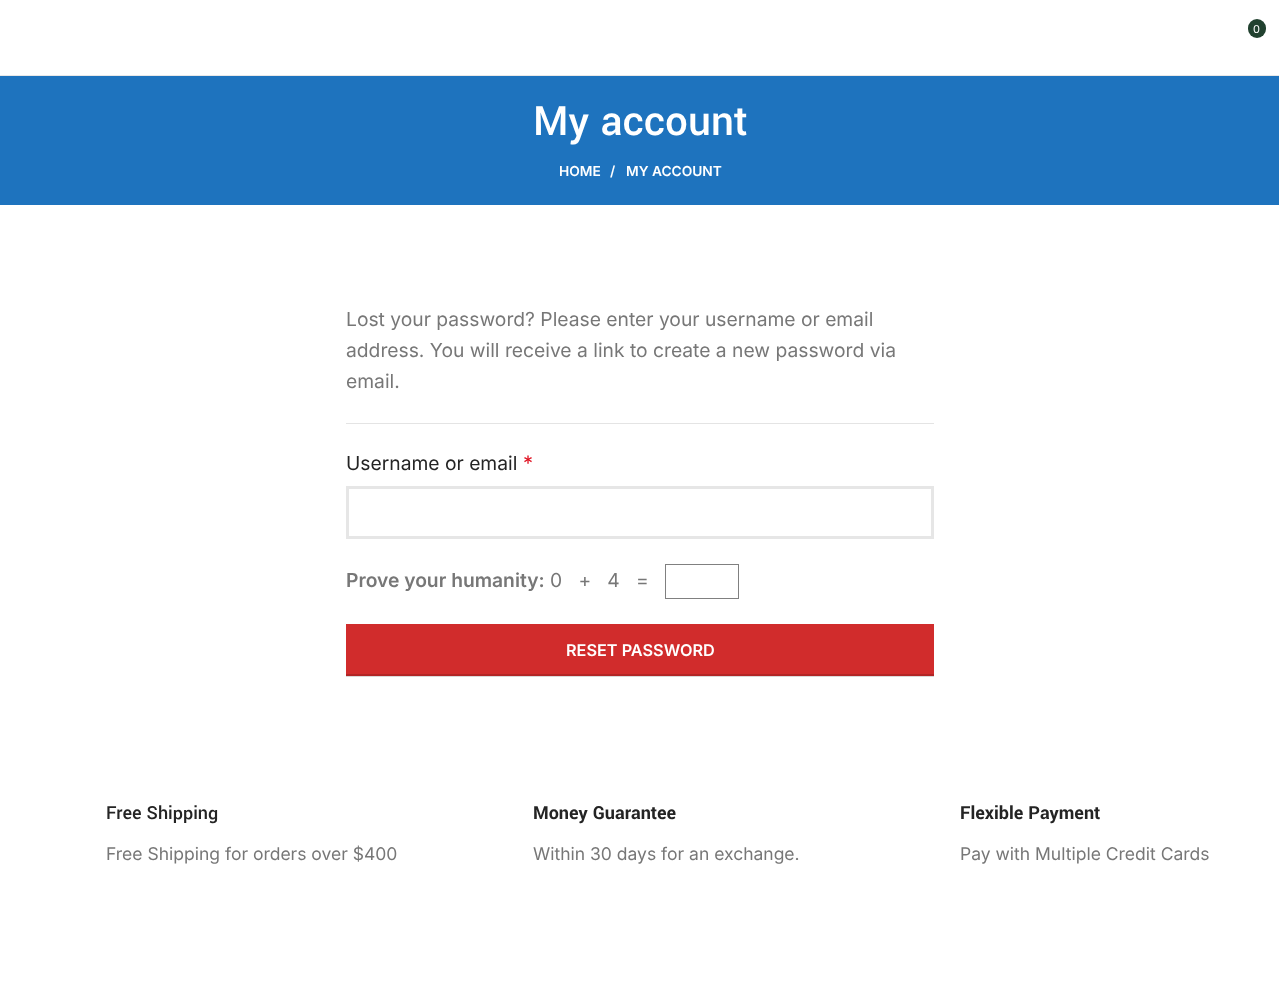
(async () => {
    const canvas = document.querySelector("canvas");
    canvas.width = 1279;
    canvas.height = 995;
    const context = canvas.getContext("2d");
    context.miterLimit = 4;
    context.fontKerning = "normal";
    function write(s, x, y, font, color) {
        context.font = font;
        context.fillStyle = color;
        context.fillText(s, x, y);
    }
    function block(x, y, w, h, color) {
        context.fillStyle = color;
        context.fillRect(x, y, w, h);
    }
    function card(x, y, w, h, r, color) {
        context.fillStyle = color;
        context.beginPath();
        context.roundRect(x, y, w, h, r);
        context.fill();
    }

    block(0, 0, 1279, 995, "rgb(255, 255, 255)");
    block(346, 676, 588, 1, "rgb(217, 217, 217)");
    block(0, 75, 1279, 1, "rgb(232, 232, 232)");
    card(1248, 19, 18, 19, 9, "rgb(33, 65, 47)");
    write("0", 1253, 33, "11px Inter", "rgb(255, 255, 255)");
    block(0, 76, 1279, 129, "rgb(30, 115, 190)");
    write("My account", 533, 135, "500 45px Yantramanav", "rgb(255, 255, 255)");
    write("HOME", 559, 176, "600 13.75px Inter", "rgb(255, 255, 255)");
    write("/", 610, 176, "600 13.75px Inter", "rgb(255, 255, 255)");
    write("MY ACCOUNT", 626, 176, "600 13.75px Inter", "rgb(255, 255, 255)");
    write("Lost your password? Please enter your username or email", 346, 326, "19.25px Inter", "rgb(119, 119, 119)");
    write("address. You will receive a link to create a new password via", 346, 357, "19.25px Inter", "rgb(119, 119, 119)");
    write("email.", 346, 388, "19.25px Inter", "rgb(119, 119, 119)");
    block(346, 423, 588, 1, "rgb(228, 228, 228)");
    write("Username or email", 346, 470, "19.25px Inter", "rgb(36, 36, 36)");
    write("*", 523, 470, "20px Inter", "rgb(224, 16, 32)");
    context.strokeStyle = "rgb(230, 230, 230)";
    context.lineWidth = 3;
    context.strokeRect(347.5, 487.5, 585, 50);
    write("Prove your humanity:", 346, 587, "600 19.25px Inter", "rgb(119, 119, 119)");
    write("0   +   4   =", 550, 587, "19.25px Inter", "rgb(119, 119, 119)");
    context.strokeStyle = "rgb(128, 128, 128)";
    context.lineWidth = 1;
    context.strokeRect(665.5, 564.5, 73, 34);
    block(346, 624, 588, 50, "rgb(209, 44, 44)");
    block(346, 674, 588, 2, "rgb(178, 37, 37)");
    write("RESET PASSWORD", 566, 656, "600 16.25px Inter", "rgb(255, 255, 255)");
    write("Free Shipping", 106, 819, "500 20px Yantramanav", "rgb(36, 36, 36)");
    write("Free Shipping for orders over $400", 106, 860, "17.5px Inter", "rgb(119, 119, 119)");
    write("Money Guarantee", 533, 819, "bold 20px Yantramanav", "rgb(36, 36, 36)");
    write("Within 30 days for an exchange.", 533, 860, "17.5px Inter", "rgb(119, 119, 119)");
    write("Flexible Payment", 960, 819, "bold 20px Yantramanav", "rgb(36, 36, 36)");
    write("Pay with Multiple Credit Cards", 960, 860, "17.5px Inter", "rgb(119, 119, 119)");
})();
